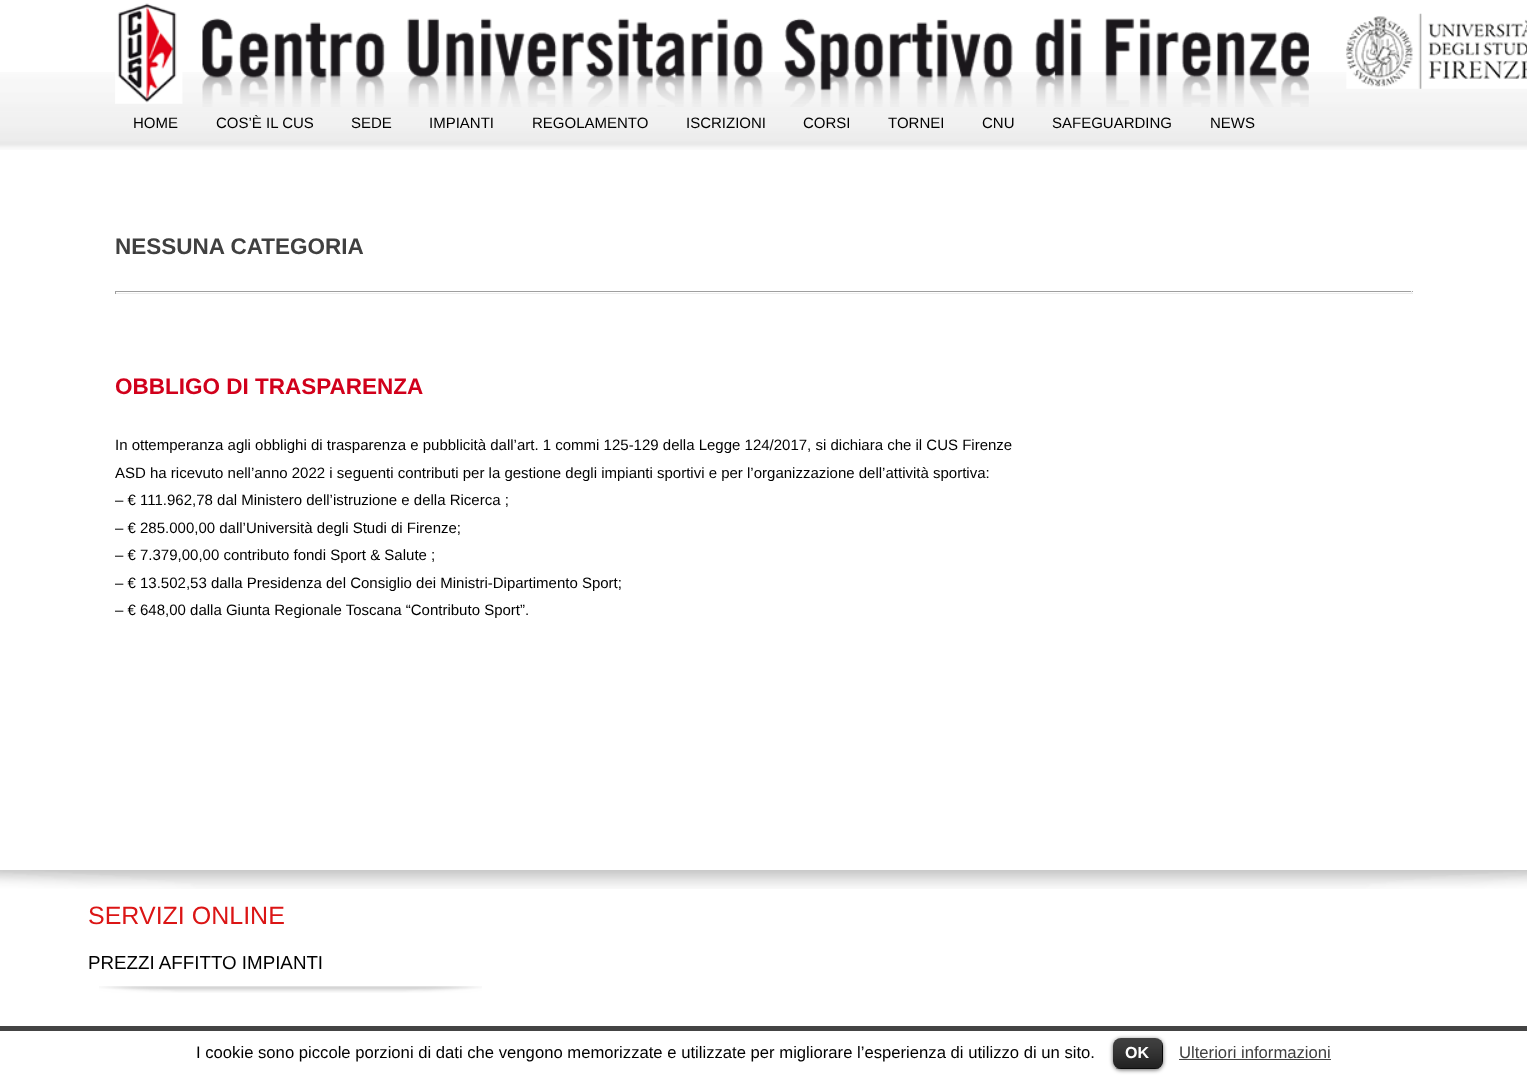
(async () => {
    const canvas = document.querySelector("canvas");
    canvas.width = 1527;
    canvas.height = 1075;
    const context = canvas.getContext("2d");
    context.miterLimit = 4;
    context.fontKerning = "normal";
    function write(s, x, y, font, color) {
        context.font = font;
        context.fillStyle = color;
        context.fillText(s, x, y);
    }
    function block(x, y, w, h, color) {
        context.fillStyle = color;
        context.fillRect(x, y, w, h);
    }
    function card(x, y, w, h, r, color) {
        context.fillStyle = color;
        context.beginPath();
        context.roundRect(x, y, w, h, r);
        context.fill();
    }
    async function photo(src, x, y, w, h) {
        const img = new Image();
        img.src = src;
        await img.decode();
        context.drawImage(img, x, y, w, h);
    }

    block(0, 0, 1527, 1075, "rgb(255, 255, 255)");
    await photo("media/1.png", 0, 72, 1527, 78);
    await photo("media/2.png", 115, 3, 1412, 104);
    write("HOME", 133, 128, "15px Liberation Sans", "rgb(0, 0, 0)");
    write("COS’È IL CUS", 216, 128, "15px Liberation Sans", "rgb(0, 0, 0)");
    write("SEDE", 351, 128, "15px Liberation Sans", "rgb(0, 0, 0)");
    write("IMPIANTI", 429, 128, "15px Liberation Sans", "rgb(0, 0, 0)");
    write("REGOLAMENTO", 532, 128, "15px Liberation Sans", "rgb(0, 0, 0)");
    write("ISCRIZIONI", 686, 128, "15px Liberation Sans", "rgb(0, 0, 0)");
    write("CORSI", 803, 128, "15px Liberation Sans", "rgb(0, 0, 0)");
    write("TORNEI", 888, 128, "15px Liberation Sans", "rgb(0, 0, 0)");
    write("CNU", 982, 128, "15px Liberation Sans", "rgb(0, 0, 0)");
    write("SAFEGUARDING", 1052, 128, "15px Liberation Sans", "rgb(0, 0, 0)");
    write("NEWS", 1210, 128, "15px Liberation Sans", "rgb(0, 0, 0)");
    write("NESSUNA CATEGORIA", 115, 254, "bold 22.5px Liberation Sans", "rgb(64, 64, 64)");
    block(115, 291, 1298, 1, "rgb(159, 159, 159)");
    block(1411, 291, 1, 3, "rgb(238, 238, 238)");
    block(115, 293, 1298, 1, "rgb(238, 238, 238)");
    block(115, 291, 1, 3, "rgb(159, 159, 159)");
    write("OBBLIGO DI TRASPARENZA", 115, 394, "bold 22.5px Liberation Sans", "rgb(209, 0, 27)");
    write("In ottemperanza agli obblighi di trasparenza e pubblicità dall’art. 1 commi 125-129 della Legge 124/2017, si dichiara che il CUS Firenze", 115, 450, "15px Liberation Sans", "rgb(0, 0, 0)");
    write("ASD ha ricevuto nell’anno 2022 i seguenti contributi per la gestione degli impianti sportivi e per l’organizzazione dell’attività sportiva:", 115, 478, "15px Liberation Sans", "rgb(0, 0, 0)");
    write("– € 111.962,78 dal Ministero dell’istruzione e della Ricerca ;", 115, 505, "15px Liberation Sans", "rgb(0, 0, 0)");
    write("– € 285.000,00 dall’Università degli Studi di Firenze;", 115, 533, "15px Liberation Sans", "rgb(0, 0, 0)");
    write("– € 7.379,00,00 contributo fondi Sport & Salute ;", 115, 560, "15px Liberation Sans", "rgb(0, 0, 0)");
    write("– € 13.502,53 dalla Presidenza del Consiglio dei Ministri-Dipartimento Sport;", 115, 588, "15px Liberation Sans", "rgb(0, 0, 0)");
    write("– € 648,00 dalla Giunta Regionale Toscana “Contributo Sport”.", 115, 615, "15px Liberation Sans", "rgb(0, 0, 0)");
    await photo("media/3.png", 0, 870, 1527, 19);
    write("SERVIZI ONLINE", 88, 924, "25px Liberation Sans", "rgb(219, 21, 21)");
    await photo("media/4.png", 99, 986, 383, 7);
    write("PREZZI AFFITTO IMPIANTI", 88, 969, "18.75px Liberation Sans", "rgb(0, 0, 0)");
    block(0, 1026, 1527, 5, "rgb(68, 68, 68)");
    write("I cookie sono piccole porzioni di dati che vengono memorizzate e utilizzate per migliorare l’esperienza di utilizzo di un sito.", 196, 1058, "16.67px Liberation Sans", "rgb(0, 0, 0)");
    context.fillStyle = "rgba(0, 0, 0, 0.6)";
    context.filter = "blur(2px)";
    context.beginPath();
    context.roundRect(1113, 1039, 50, 31, 8);
    context.fill();
    context.filter = "none";
    card(1113, 1038, 50, 31, 8, "rgb(0, 0, 0)");
    await photo("media/5.png", 1113, 1038, 50, 31);
    block(1116, 1068, 43, 1, "rgba(0, 0, 0, 0.25)");
    write("OK", 1125, 1058, "bold 16px Liberation Sans", "rgb(255, 255, 255)");
    write("Ulteriori informazioni", 1179, 1058, "16.67px Liberation Sans", "rgb(64, 64, 64)");
    block(1179, 1059, 152, 1, "rgb(68, 68, 68)");
})();
